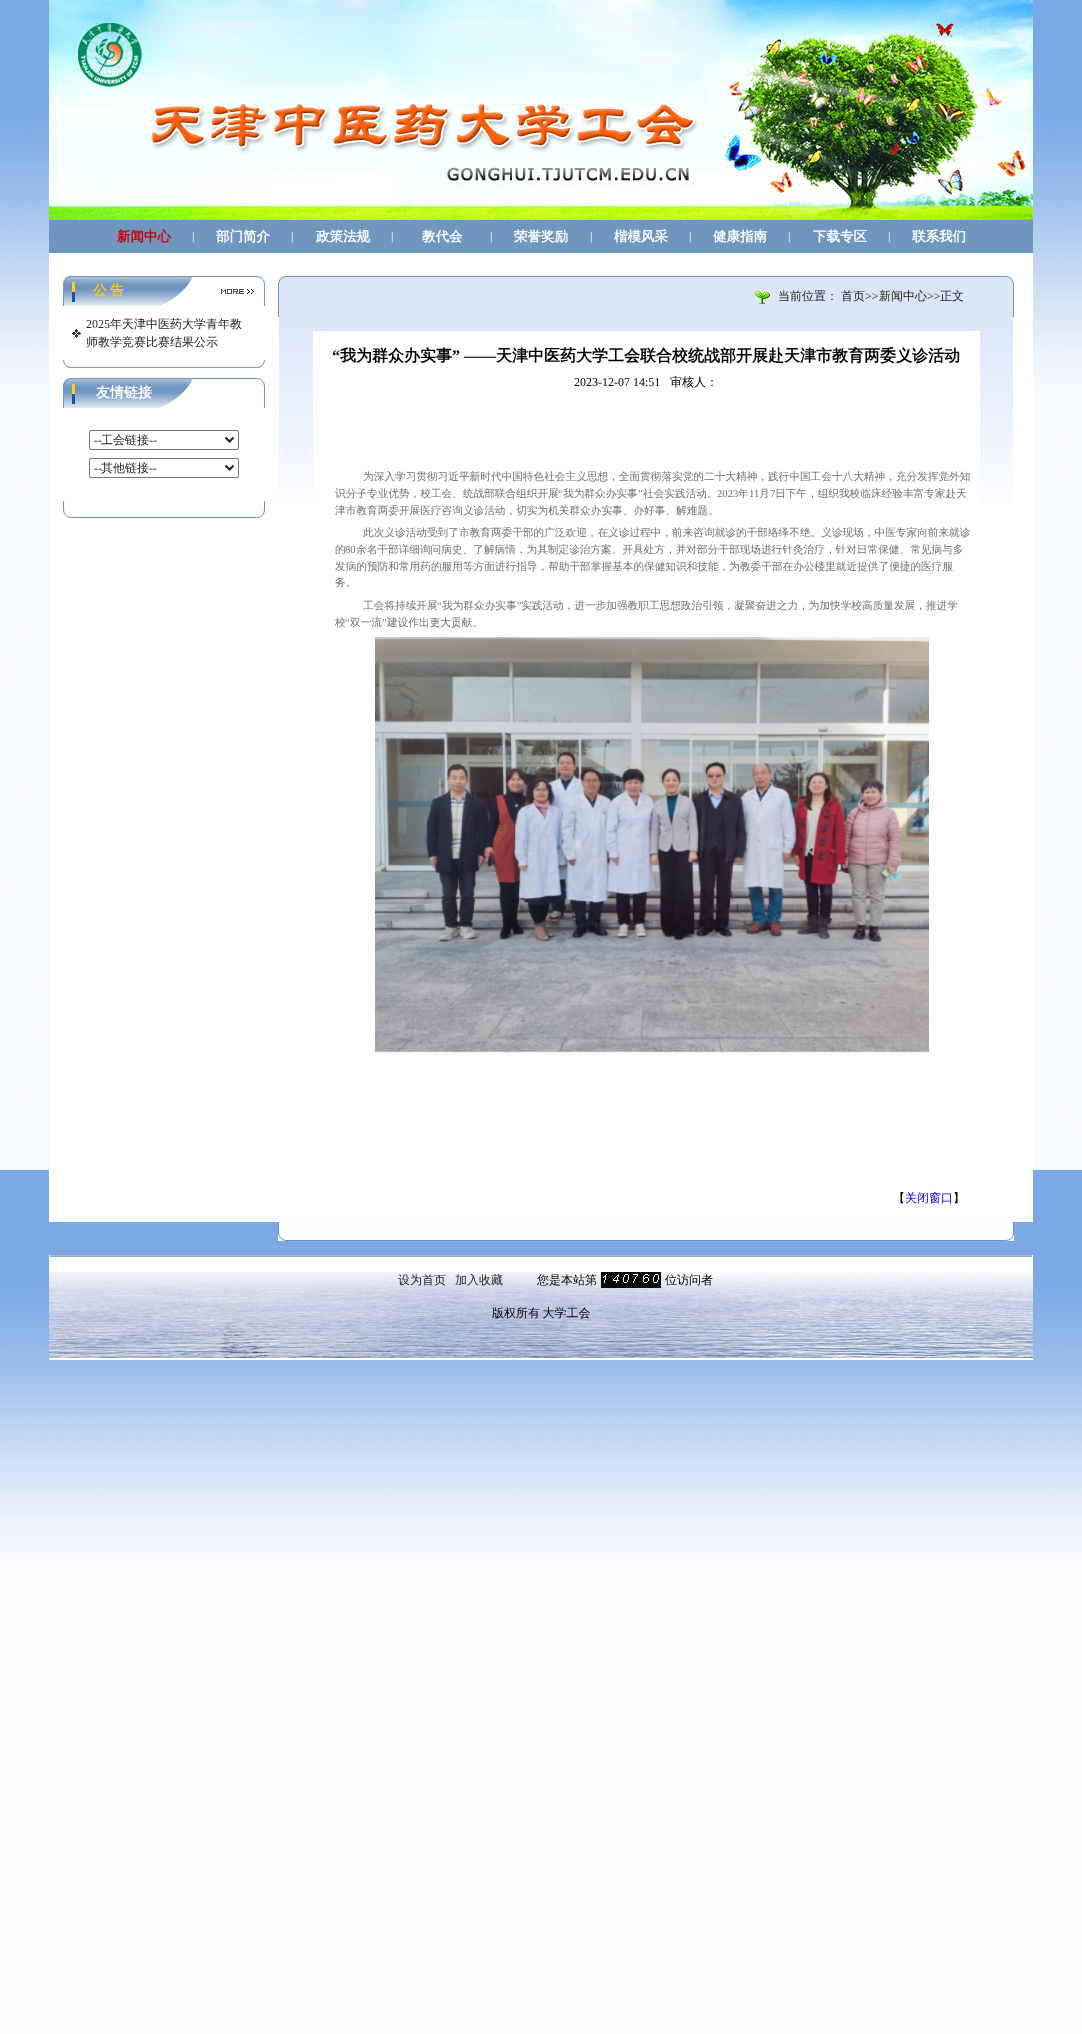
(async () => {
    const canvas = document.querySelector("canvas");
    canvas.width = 1082;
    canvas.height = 2034;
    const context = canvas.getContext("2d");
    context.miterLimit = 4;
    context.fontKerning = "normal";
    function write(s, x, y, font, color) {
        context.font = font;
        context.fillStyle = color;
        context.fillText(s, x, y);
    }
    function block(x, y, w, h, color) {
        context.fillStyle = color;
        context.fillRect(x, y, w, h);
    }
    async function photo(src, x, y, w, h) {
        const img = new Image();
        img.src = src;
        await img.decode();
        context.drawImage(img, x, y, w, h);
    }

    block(0, 0, 1082, 2034, "rgb(251, 251, 252)");
    await photo("media/1.png", 0, 0, 1082, 1559);
    await photo("media/2.png", 49, 0, 984, 220);
    block(49, 220, 984, 33, "rgb(112, 149, 191)");
    write("新闻中心", 117, 241, "bold 13.5px WenQuanYi Zen Hei", "rgb(204, 0, 0)");
    write("|", 192, 240, "12px Liberation Serif", "rgb(255, 255, 255)");
    write("部门简介", 216, 241, "bold 13.5px WenQuanYi Zen Hei", "rgb(255, 255, 255)");
    write("|", 291, 240, "12px Liberation Serif", "rgb(255, 255, 255)");
    write("政策法规", 316, 241, "bold 13.5px WenQuanYi Zen Hei", "rgb(255, 255, 255)");
    write("|", 391, 240, "12px Liberation Serif", "rgb(255, 255, 255)");
    write("教代会", 422, 241, "bold 13.5px WenQuanYi Zen Hei", "rgb(255, 255, 255)");
    write("|", 490, 240, "12px Liberation Serif", "rgb(255, 255, 255)");
    write("荣誉奖励", 514, 241, "bold 13.5px WenQuanYi Zen Hei", "rgb(255, 255, 255)");
    write("|", 590, 240, "12px Liberation Serif", "rgb(255, 255, 255)");
    write("楷模风采", 614, 241, "bold 13.5px WenQuanYi Zen Hei", "rgb(255, 255, 255)");
    write("|", 689, 240, "12px Liberation Serif", "rgb(255, 255, 255)");
    write("健康指南", 713, 241, "bold 13.5px WenQuanYi Zen Hei", "rgb(255, 255, 255)");
    write("|", 788, 240, "12px Liberation Serif", "rgb(255, 255, 255)");
    write("下载专区", 813, 241, "bold 13.5px WenQuanYi Zen Hei", "rgb(255, 255, 255)");
    write("|", 888, 240, "12px Liberation Serif", "rgb(255, 255, 255)");
    write("联系我们", 912, 241, "bold 13.5px WenQuanYi Zen Hei", "rgb(255, 255, 255)");
    block(49, 253, 984, 969, "rgb(255, 255, 255)");
    await photo("media/3.png", 63, 276, 202, 30);
    context.wordSpacing = "-1px";
    write("公 告", 93, 295, "bold 14px WenQuanYi Zen Hei", "rgb(255, 204, 0)");
    await photo("media/4.png", 221, 289, 33, 5);
    await photo("media/5.png", 72, 329, 9, 9);
    context.wordSpacing = "0px";
    write("2025", 86, 328, "12px Liberation Serif", "rgb(34, 34, 34)");
    write("年天津中医药大学青年教", 110, 328, "500 12px WenQuanYi Zen Hei", "rgb(34, 34, 34)");
    write("师教学竞赛比赛结果公示", 86, 346, "500 12px WenQuanYi Zen Hei", "rgb(34, 34, 34)");
    await photo("media/6.png", 63, 360, 202, 8);
    await photo("media/3.png", 63, 378, 202, 30);
    write("友情链接", 96, 397, "bold 14px WenQuanYi Zen Hei", "rgb(255, 255, 255)");
    context.beginPath();
    context.roundRect(89.5, 430.5, 149, 19, 1.5);
    context.strokeStyle = "rgb(118, 118, 118)";
    context.stroke();
    context.beginPath();
    context.moveTo(225.5, 437.5);
    context.lineTo(229.5, 441.5);
    context.lineTo(233.5, 437.5);
    context.strokeStyle = "rgb(34, 34, 34)";
    context.lineWidth = 2;
    context.stroke();
    write("--", 94, 444, "12px Liberation Serif", "rgb(34, 34, 34)");
    write("工会链接", 101, 444, "500 12px WenQuanYi Zen Hei", "rgb(34, 34, 34)");
    write("--", 149, 444, "12px Liberation Serif", "rgb(34, 34, 34)");
    context.beginPath();
    context.roundRect(89.5, 458.5, 149, 19, 1.5);
    context.strokeStyle = "rgb(118, 118, 118)";
    context.lineWidth = 1;
    context.stroke();
    context.beginPath();
    context.moveTo(225.5, 465.5);
    context.lineTo(229.5, 469.5);
    context.lineTo(233.5, 465.5);
    context.strokeStyle = "rgb(34, 34, 34)";
    context.lineWidth = 2;
    context.stroke();
    write("--", 94, 472, "12px Liberation Serif", "rgb(34, 34, 34)");
    write("其他链接", 101, 472, "500 12px WenQuanYi Zen Hei", "rgb(34, 34, 34)");
    write("--", 149, 472, "12px Liberation Serif", "rgb(34, 34, 34)");
    await photo("media/7.png", 63, 501, 202, 17);
    await photo("media/8.png", 278, 276, 736, 41);
    await photo("media/9.png", 755, 291, 15, 13);
    write("当前位置：", 778, 300, "500 12px WenQuanYi Zen Hei", "rgb(34, 34, 34)");
    write("首页", 841, 300, "500 12px WenQuanYi Zen Hei", "rgb(34, 34, 34)");
    write(">>", 865, 300, "12px Liberation Serif", "rgb(34, 34, 34)");
    write("新闻中心", 879, 300, "500 12px WenQuanYi Zen Hei", "rgb(34, 34, 34)");
    write(">>", 927, 300, "12px Liberation Serif", "rgb(34, 34, 34)");
    write("正文", 940, 300, "500 12px WenQuanYi Zen Hei", "rgb(34, 34, 34)");
    await photo("media/10.png", 279, 317, 734, 186);
    block(313, 331, 667, 172, "rgb(255, 255, 255)");
    write("“", 332, 361, "bold 16px Liberation Serif", "rgb(0, 0, 0)");
    write("我为群众办实事", 340, 361, "bold 16px WenQuanYi Zen Hei", "rgb(0, 0, 0)");
    write("” ——", 452, 361, "bold 16px Liberation Serif", "rgb(0, 0, 0)");
    write("天津中医药大学工会联合校统战部开展赴天津市教育两委义诊活动", 496, 361, "bold 16px WenQuanYi Zen Hei", "rgb(0, 0, 0)");
    write("2023-12-07 14:51", 574, 386, "12px Liberation Serif", "rgb(0, 0, 0)");
    write("审核人：", 670, 386, "500 12px WenQuanYi Zen Hei", "rgb(0, 0, 0)");
    write("为深入学习贯彻习近平新时代中国特色社会主义思想，全面贯彻落实党的二十大精神，践行中国工会十八大精神，充分发挥党外知", 363, 480, "500 10.67px WenQuanYi Zen Hei", "rgb(112, 112, 112)");
    write("识分子专业优势，校工会、统战部联合组织开展", 335, 497, "500 10.67px WenQuanYi Zen Hei", "rgb(112, 112, 112)");
    write("“", 558, 497, "10.67px Liberation Serif", "rgb(112, 112, 112)");
    write("我为群众办实事", 563, 497, "500 10.67px WenQuanYi Zen Hei", "rgb(112, 112, 112)");
    write("”", 638, 497, "10.67px Liberation Serif", "rgb(112, 112, 112)");
    write("社会实践活动。", 643, 497, "500 10.67px WenQuanYi Zen Hei", "rgb(112, 112, 112)");
    write("2023", 717, 497, "10.67px Liberation Serif", "rgb(112, 112, 112)");
    write("年", 738, 497, "500 10.67px WenQuanYi Zen Hei", "rgb(112, 112, 112)");
    write("11", 749, 497, "10.67px Liberation Serif", "rgb(112, 112, 112)");
    write("月", 759, 497, "500 10.67px WenQuanYi Zen Hei", "rgb(112, 112, 112)");
    write("7", 770, 497, "10.67px Liberation Serif", "rgb(112, 112, 112)");
    write("日下午，组织我校临床经验丰富专家赴天", 775, 497, "500 10.67px WenQuanYi Zen Hei", "rgb(112, 112, 112)");
    write("津市教育两委开展医疗咨询义诊活动，切实为机关群众办实事、办好事、解难题。", 335, 514, "500 10.67px WenQuanYi Zen Hei", "rgb(112, 112, 112)");
    write("此次义诊活动受到了市教育两委干部的广泛欢迎，在义诊过程中，前来咨询就诊的干部络绎不绝。义诊现场，中医专家向前来就诊", 363, 536, "500 10.67px WenQuanYi Zen Hei", "rgb(112, 112, 112)");
    write("的", 335, 553, "500 10.67px WenQuanYi Zen Hei", "rgb(112, 112, 112)");
    write("80", 345, 553, "10.67px Liberation Serif", "rgb(112, 112, 112)");
    write("余名干部详细询问病史、了解病情，为其制定诊治方案、开具处方，并对部分干部现场进行针灸治疗，针对日常保健、常见病与多", 356, 553, "500 10.67px WenQuanYi Zen Hei", "rgb(112, 112, 112)");
    write("发病的预防和常用药的服用等方面进行指导，帮助干部掌握基本的保健知识和技能，为教委干部在办公楼里就近提供了便捷的医疗服", 335, 570, "500 10.67px WenQuanYi Zen Hei", "rgb(112, 112, 112)");
    write("务。", 335, 586, "500 10.67px WenQuanYi Zen Hei", "rgb(112, 112, 112)");
    write("工会将持续开展", 363, 609, "500 10.67px WenQuanYi Zen Hei", "rgb(112, 112, 112)");
    write("“", 437, 609, "10.67px Liberation Serif", "rgb(112, 112, 112)");
    write("我为群众办实事", 442, 609, "500 10.67px WenQuanYi Zen Hei", "rgb(112, 112, 112)");
    write("”", 517, 609, "10.67px Liberation Serif", "rgb(112, 112, 112)");
    write("实践活动，进一步加强教职工思想政治引领，凝聚奋进之力，为加快学校高质量发展，推进学", 521, 609, "500 10.67px WenQuanYi Zen Hei", "rgb(112, 112, 112)");
    write("校", 335, 626, "500 10.67px WenQuanYi Zen Hei", "rgb(112, 112, 112)");
    write("“", 345, 626, "10.67px Liberation Serif", "rgb(112, 112, 112)");
    write("双一流", 350, 626, "500 10.67px WenQuanYi Zen Hei", "rgb(112, 112, 112)");
    write("”", 382, 626, "10.67px Liberation Serif", "rgb(112, 112, 112)");
    write("建设作出更大贡献。", 387, 626, "500 10.67px WenQuanYi Zen Hei", "rgb(112, 112, 112)");
    await photo("media/11.png", 375, 637, 554, 416);
    write("【", 893, 1202, "500 12px WenQuanYi Zen Hei", "rgb(0, 0, 0)");
    write("关闭窗口", 905, 1202, "500 12px WenQuanYi Zen Hei", "rgb(0, 0, 238)");
    write("】", 953, 1202, "500 12px WenQuanYi Zen Hei", "rgb(0, 0, 0)");
    await photo("media/12.png", 278, 1222, 736, 19);
    await photo("media/13.png", 49, 1255, 984, 105);
    await photo("media/14.png", 50, 1255, 982, 2);
    write("设为首页", 398, 1284, "500 12px WenQuanYi Zen Hei", "rgb(34, 34, 34)");
    write("加入收藏", 455, 1284, "500 12px WenQuanYi Zen Hei", "rgb(34, 34, 34)");
    write("您是本站第", 537, 1284, "500 12px WenQuanYi Zen Hei", "rgb(0, 0, 0)");
    await photo("media/15.png", 601, 1272, 60, 16);
    write("位访问者", 665, 1284, "500 12px WenQuanYi Zen Hei", "rgb(0, 0, 0)");
    context.wordSpacing = "-1px";
    write("版权所有 大学工会", 492, 1317, "500 12px WenQuanYi Zen Hei", "rgb(0, 0, 0)");
})();
